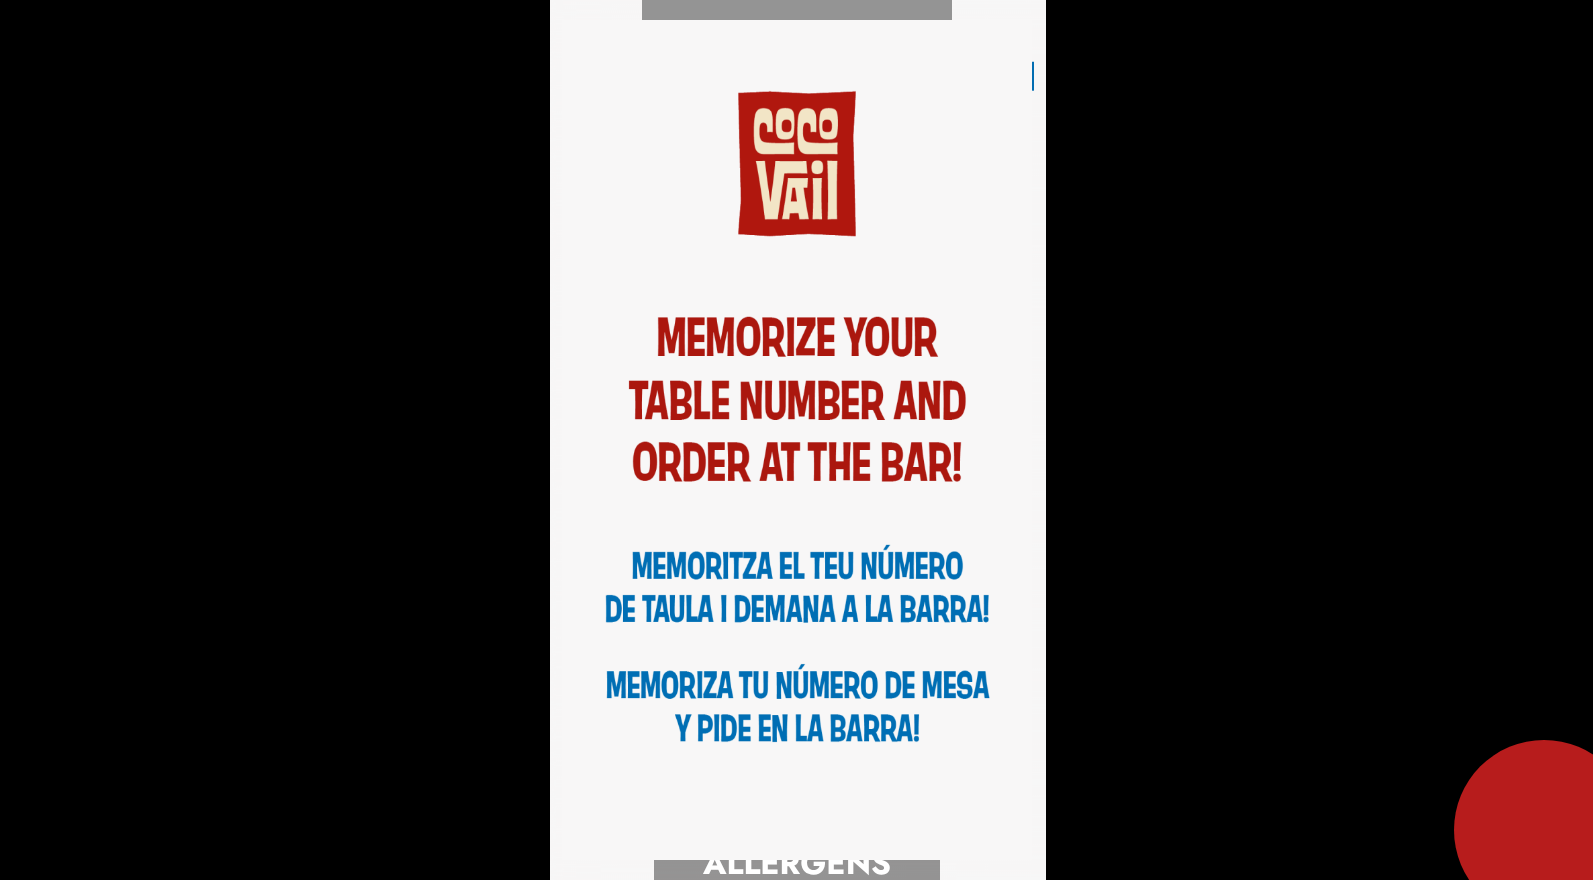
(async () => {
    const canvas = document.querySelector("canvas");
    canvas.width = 1593;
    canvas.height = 880;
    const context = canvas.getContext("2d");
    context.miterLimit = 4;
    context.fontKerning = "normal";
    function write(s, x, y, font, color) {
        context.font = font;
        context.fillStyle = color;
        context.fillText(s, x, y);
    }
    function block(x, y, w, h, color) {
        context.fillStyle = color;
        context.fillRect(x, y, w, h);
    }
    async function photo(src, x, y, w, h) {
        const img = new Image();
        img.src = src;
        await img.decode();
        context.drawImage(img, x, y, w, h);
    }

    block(0, 0, 1593, 880, "rgb(0, 0, 0)");
    await photo("media/1.png", 550, 0, 496, 880);
    block(654, 860, 286, 20, "rgba(0, 0, 0, 0.4)");
    write("ALLERGENS", 703, 874, "bold 32px Jost", "rgb(255, 255, 255)");
    await photo("media/2.png", 562, 20, 470, 840);
    context.fillStyle = "rgb(183, 28, 28)";
    context.beginPath();
    context.arc(1544, 830, 90, 0, Math.PI * 2);
    context.fill();
    block(642, 0, 310, 20, "rgb(148, 148, 148)");
})();
